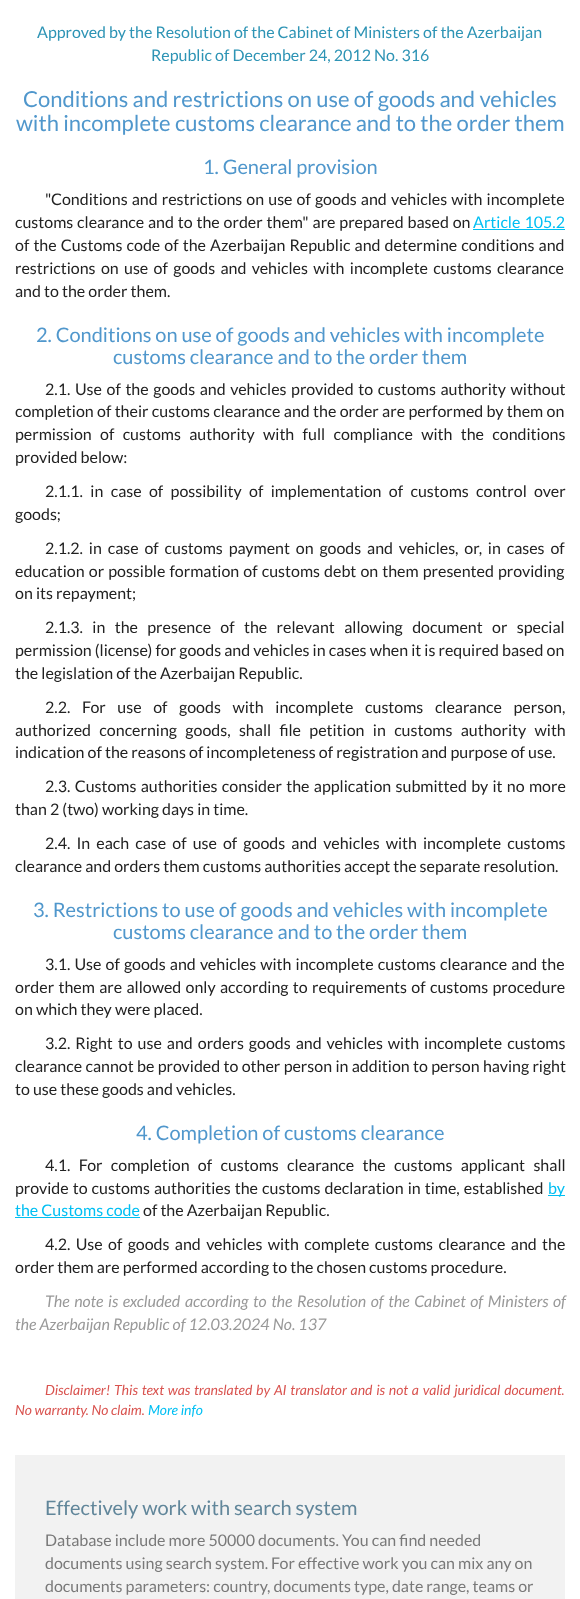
(async () => {
    const canvas = document.querySelector("canvas");
    canvas.width = 580;
    canvas.height = 1599;
    const context = canvas.getContext("2d");
    context.miterLimit = 4;
    context.fontKerning = "normal";
    function write(s, x, y, font, color) {
        context.font = font;
        context.fillStyle = color;
        context.fillText(s, x, y);
    }
    function block(x, y, w, h, color) {
        context.fillStyle = color;
        context.fillRect(x, y, w, h);
    }

    block(0, 0, 580, 1599, "rgb(255, 255, 255)");
    write("Approved by the Resolution of the Cabinet of Ministers of the Azerbaijan", 37, 38, "16px Lato", "rgb(46, 148, 181)");
    write("Republic of December 24, 2012 No. 316", 151, 61, "16px Lato", "rgb(46, 148, 181)");
    write("Conditions and restrictions on use of goods and vehicles", 23, 107, "22px Lato", "rgb(80, 151, 204)");
    write("with incomplete customs clearance and to the order them", 16, 131, "22px Lato", "rgb(80, 151, 204)");
    write("1. General provision", 203, 174, "20px Lato", "rgb(80, 151, 204)");
    context.wordSpacing = "1px";
    write("\"Conditions and restrictions on use of goods and vehicles with incomplete", 45, 205, "16px Lato", "rgb(34, 34, 34)");
    context.wordSpacing = "0.75px";
    write("customs clearance and to the order them\" are prepared based on", 15, 228, "16px Lato", "rgb(34, 34, 34)");
    context.wordSpacing = "1px";
    write("Article 105.2", 473, 228, "16px Lato", "rgb(0, 191, 243)");
    block(473, 229, 92, 1, "rgb(0, 191, 243)");
    write("of the Customs code of the Azerbaijan Republic and determine conditions and", 15, 251, "16px Lato", "rgb(34, 34, 34)");
    context.wordSpacing = "2.25px";
    write("restrictions on use of goods and vehicles with incomplete customs clearance", 15, 274, "16px Lato", "rgb(34, 34, 34)");
    context.wordSpacing = "0px";
    write("and to the order them.", 15, 297, "16px Lato", "rgb(34, 34, 34)");
    write("2. Conditions on use of goods and vehicles with incomplete", 36, 342, "20px Lato", "rgb(80, 151, 204)");
    write("customs clearance and to the order them", 113, 364, "20px Lato", "rgb(80, 151, 204)");
    context.wordSpacing = "1.5px";
    write("2.1. Use of the goods and vehicles provided to customs authority without", 45, 395, "16px Lato", "rgb(34, 34, 34)");
    context.wordSpacing = "0.25px";
    write("completion of their customs clearance and the order are performed by them on", 15, 417, "16px Lato", "rgb(34, 34, 34)");
    context.wordSpacing = "5.25px";
    write("permission of customs authority with full compliance with the conditions", 15, 440, "16px Lato", "rgb(34, 34, 34)");
    context.wordSpacing = "0px";
    write("provided below:", 15, 463, "16px Lato", "rgb(34, 34, 34)");
    context.wordSpacing = "4.25px";
    write("2.1.1. in case of possibility of implementation of customs control over", 45, 497, "16px Lato", "rgb(34, 34, 34)");
    context.wordSpacing = "0px";
    write("goods;", 15, 520, "16px Lato", "rgb(34, 34, 34)");
    context.wordSpacing = "2.75px";
    write("2.1.2. in case of customs payment on goods and vehicles, or, in cases of", 45, 554, "16px Lato", "rgb(34, 34, 34)");
    context.wordSpacing = "1px";
    write("education or possible formation of customs debt on them presented providing", 15, 577, "16px Lato", "rgb(34, 34, 34)");
    context.wordSpacing = "0px";
    write("on its repayment;", 15, 599, "16px Lato", "rgb(34, 34, 34)");
    context.wordSpacing = "6.25px";
    write("2.1.3. in the presence of the relevant allowing document or special", 45, 633, "16px Lato", "rgb(34, 34, 34)");
    context.wordSpacing = "0px";
    write("permission (license) for goods and vehicles in cases when it is required based on", 15, 656, "16px Lato", "rgb(34, 34, 34)");
    write("the legislation of the Azerbaijan Republic.", 15, 679, "16px Lato", "rgb(34, 34, 34)");
    context.wordSpacing = "8.5px";
    write("2.2. For use of goods with incomplete customs clearance person,", 45, 713, "16px Lato", "rgb(34, 34, 34)");
    context.wordSpacing = "5.25px";
    write("authorized concerning goods, shall file petition in customs authority with", 15, 736, "16px Lato", "rgb(34, 34, 34)");
    context.wordSpacing = "0px";
    write("indication of the reasons of incompleteness of registration and purpose of use.", 15, 758, "16px Lato", "rgb(34, 34, 34)");
    context.wordSpacing = "1.25px";
    write("2.3. Customs authorities consider the application submitted by it no more", 45, 792, "16px Lato", "rgb(34, 34, 34)");
    context.wordSpacing = "0px";
    write("than 2 (two) working days in time.", 15, 815, "16px Lato", "rgb(34, 34, 34)");
    context.wordSpacing = "3px";
    write("2.4. In each case of use of goods and vehicles with incomplete customs", 45, 849, "16px Lato", "rgb(34, 34, 34)");
    context.wordSpacing = "0px";
    write("clearance and orders them customs authorities accept the separate resolution.", 15, 872, "16px Lato", "rgb(34, 34, 34)");
    write("3. Restrictions to use of goods and vehicles with incomplete", 33, 917, "20px Lato", "rgb(80, 151, 204)");
    write("customs clearance and to the order them", 113, 939, "20px Lato", "rgb(80, 151, 204)");
    context.wordSpacing = "1px";
    write("3.1. Use of goods and vehicles with incomplete customs clearance and the", 45, 970, "16px Lato", "rgb(34, 34, 34)");
    context.wordSpacing = "1.25px";
    write("order them are allowed only according to requirements of customs procedure", 15, 993, "16px Lato", "rgb(34, 34, 34)");
    context.wordSpacing = "0px";
    write("on which they were placed.", 15, 1015, "16px Lato", "rgb(34, 34, 34)");
    context.wordSpacing = "1.9px";
    write("3.2. Right to use and orders goods and vehicles with incomplete customs", 45, 1049, "16px Lato", "rgb(34, 34, 34)");
    context.wordSpacing = "0.25px";
    write("clearance cannot be provided to other person in addition to person having right", 15, 1072, "16px Lato", "rgb(34, 34, 34)");
    context.wordSpacing = "0px";
    write("to use these goods and vehicles.", 15, 1095, "16px Lato", "rgb(34, 34, 34)");
    write("4. Completion of customs clearance", 136, 1140, "20px Lato", "rgb(80, 151, 204)");
    context.wordSpacing = "5.25px";
    write("4.1. For completion of customs clearance the customs applicant shall", 45, 1171, "16px Lato", "rgb(34, 34, 34)");
    context.wordSpacing = "1px";
    write("provide to customs authorities the customs declaration in time, established", 15, 1194, "16px Lato", "rgb(34, 34, 34)");
    block(548, 1195, 17, 1, "rgb(0, 191, 243)");
    context.wordSpacing = "0px";
    write("by", 548, 1194, "16px Lato", "rgb(0, 191, 243)");
    write("the Customs code", 15, 1216, "16px Lato", "rgb(0, 191, 243)");
    block(15, 1217, 125, 1, "rgb(0, 191, 243)");
    write("of the Azerbaijan Republic.", 143, 1216, "16px Lato", "rgb(34, 34, 34)");
    context.wordSpacing = "2.25px";
    write("4.2. Use of goods and vehicles with complete customs clearance and the", 45, 1250, "16px Lato", "rgb(34, 34, 34)");
    context.wordSpacing = "0px";
    write("order them are performed according to the chosen customs procedure.", 15, 1273, "16px Lato", "rgb(34, 34, 34)");
    context.wordSpacing = "1.5px";
    write("The note is excluded", 45, 1307, "italic 16px Lato", "rgb(153, 153, 153)");
    write("according to the Resolution of the Cabinet of Ministers of", 185, 1307, "italic 16px Lato", "rgb(153, 153, 153)");
    context.wordSpacing = "0px";
    write("the Azerbaijan Republic of 12.03.2024 No. 137", 15, 1330, "italic 16px Lato", "rgb(153, 153, 153)");
    write("Disclaimer!", 45, 1395, "italic 14px Lato", "rgb(217, 83, 79)");
    context.wordSpacing = "1.1px";
    write("This text was translated by AI translator and is not a valid juridical document.", 114, 1395, "italic 14px Lato", "rgb(217, 83, 79)");
    context.wordSpacing = "0px";
    write("No warranty. No claim.", 15, 1415, "italic 14px Lato", "rgb(217, 83, 79)");
    write("More info", 148, 1415, "italic 14px Lato", "rgb(0, 191, 243)");
    block(15, 1455, 550, 144, "rgb(242, 242, 242)");
    write("Effectively work with search system", 45, 1515, "20px Lato", "rgb(97, 134, 154)");
    write("Database include more 50000 documents. You can find needed", 45, 1546, "16px Lato", "rgb(121, 121, 121)");
    write("documents using search system. For effective work you can mix any on", 45, 1569, "16px Lato", "rgb(121, 121, 121)");
    write("documents parameters: country, documents type, date range, teams or", 45, 1592, "16px Lato", "rgb(121, 121, 121)");
})();
